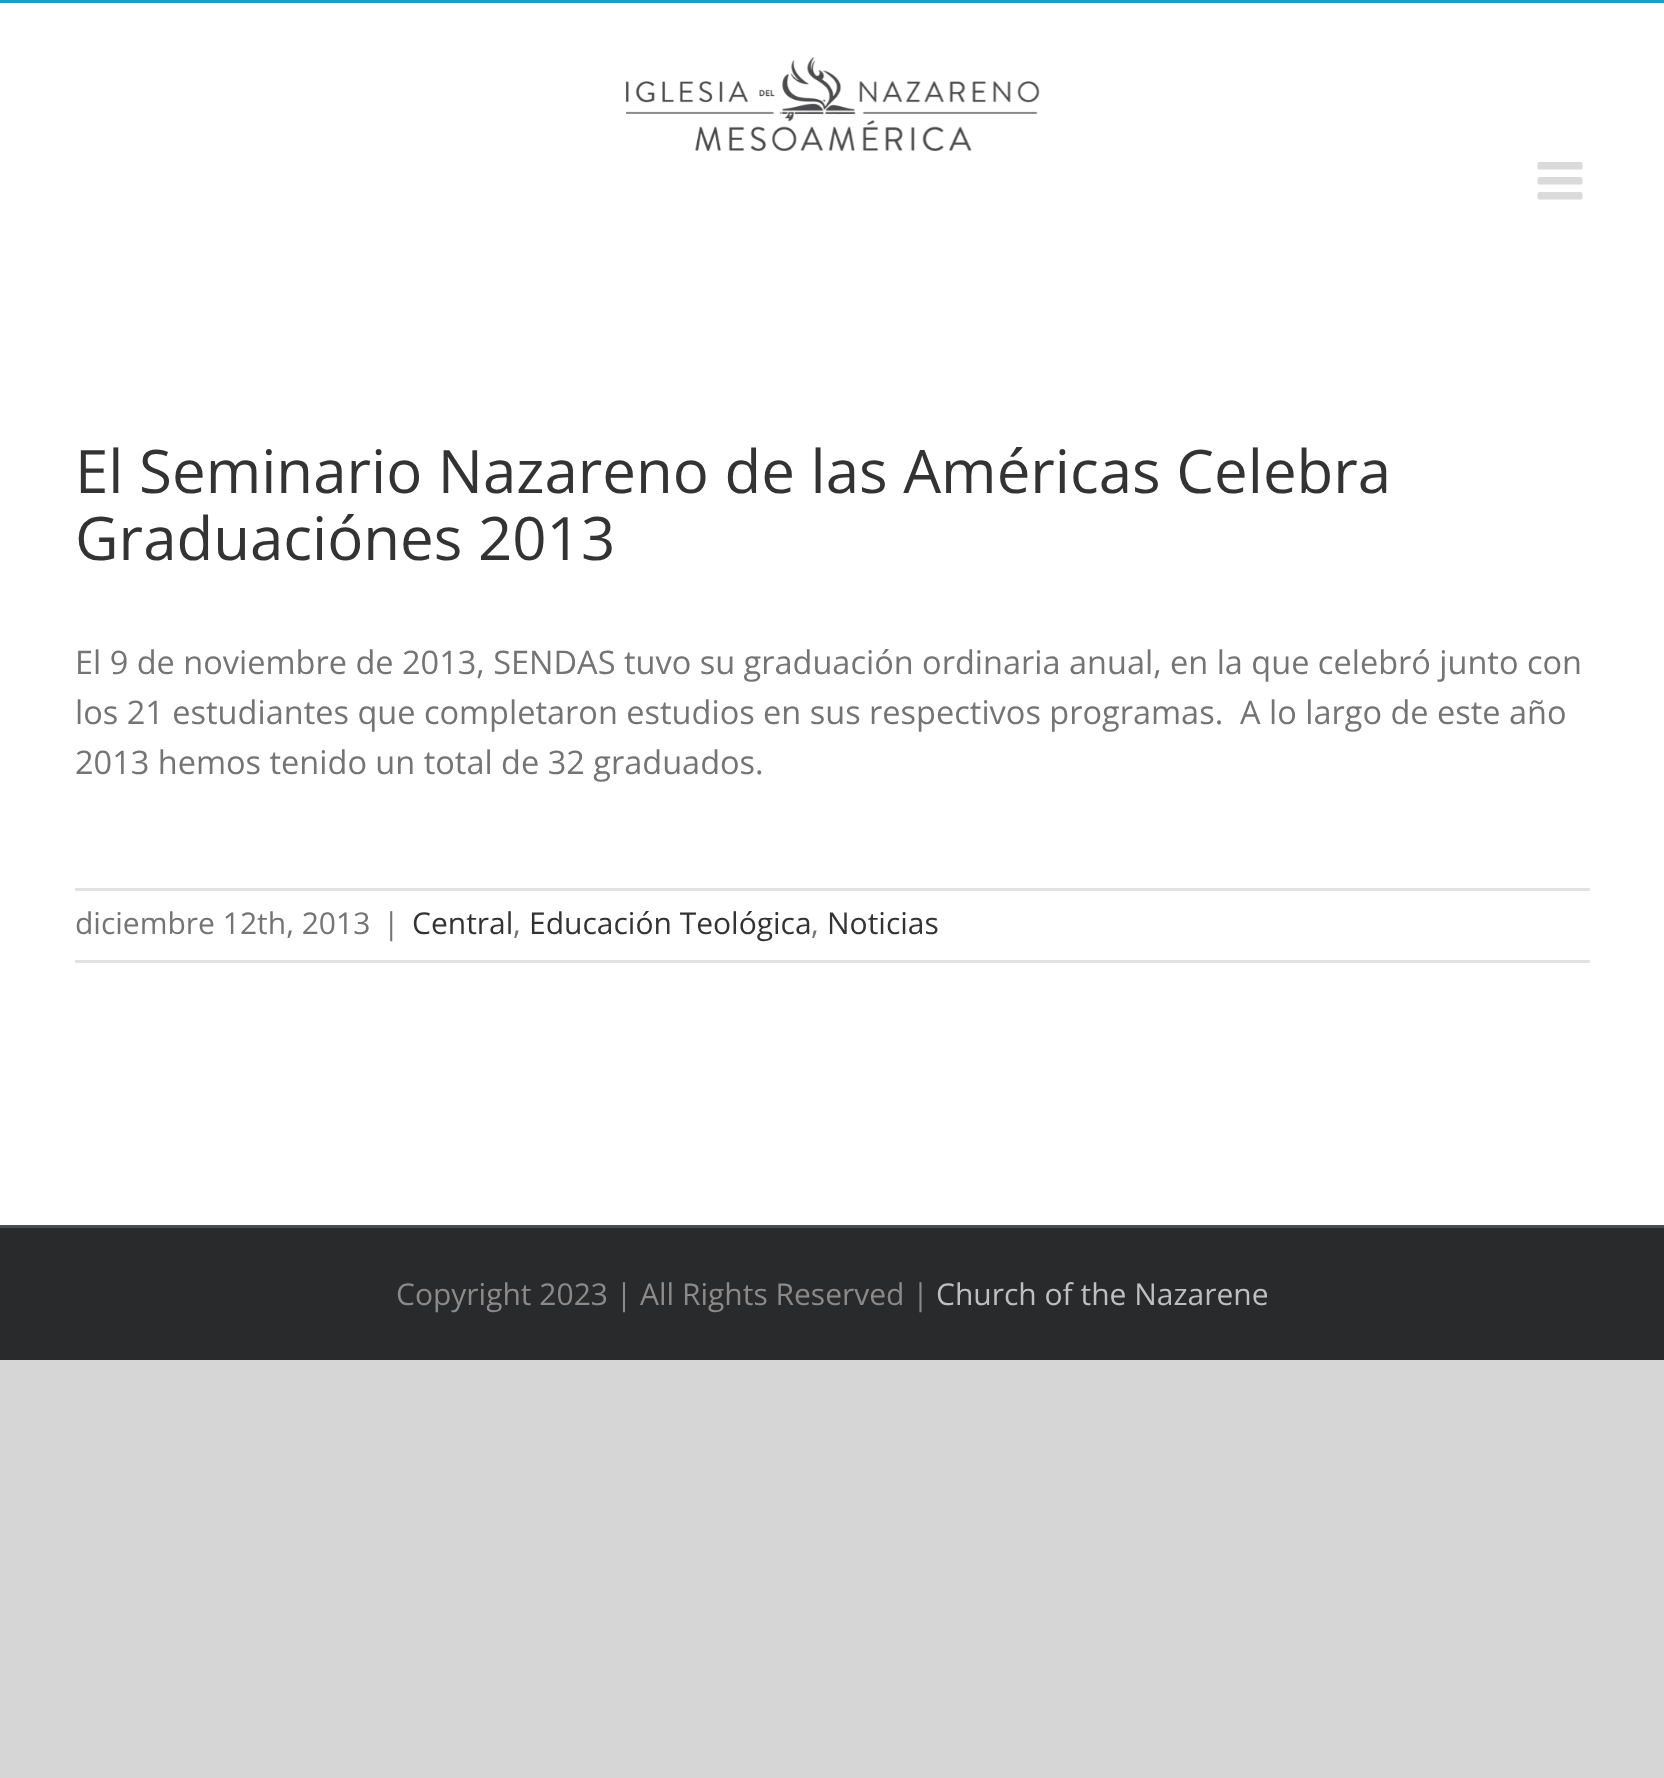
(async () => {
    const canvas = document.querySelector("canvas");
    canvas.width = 1664;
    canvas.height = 1778;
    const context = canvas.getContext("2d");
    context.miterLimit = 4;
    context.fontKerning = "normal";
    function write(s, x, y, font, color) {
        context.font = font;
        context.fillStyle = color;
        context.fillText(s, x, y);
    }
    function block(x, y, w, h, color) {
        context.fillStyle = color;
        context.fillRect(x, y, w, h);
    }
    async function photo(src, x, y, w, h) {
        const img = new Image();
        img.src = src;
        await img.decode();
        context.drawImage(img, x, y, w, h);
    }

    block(0, 0, 1664, 1778, "rgb(215, 214, 214)");
    block(0, 3, 1664, 1222, "rgb(255, 255, 255)");
    block(0, 0, 1664, 3, "rgb(19, 161, 196)");
    await photo("media/1.png", 625, 57, 415, 94);
    await photo("media/2.png", 1537, 162, 46, 38);
    write("El Seminario Nazareno de las Américas Celebra", 75, 493, "60px Open Sans", "rgb(51, 51, 51)");
    write("Graduaciónes 2013", 75, 560, "60px Open Sans", "rgb(51, 51, 51)");
    write("El 9 de noviembre de 2013, SENDAS tuvo su graduación ordinaria anual, en la que celebró junto con", 75, 674, "32.5px Open Sans", "rgb(116, 116, 116)");
    write("los 21 estudiantes que completaron estudios en sus respectivos programas.  A lo largo de este año", 75, 724, "32.5px Open Sans", "rgb(116, 116, 116)");
    write("2013 hemos tenido un total de 32 graduados.", 75, 774, "32.5px Open Sans", "rgb(116, 116, 116)");
    block(75, 888, 1515, 3, "rgb(226, 226, 226)");
    block(75, 960, 1515, 3, "rgb(226, 226, 226)");
    write("diciembre 12th, 2013", 75, 934, "30px Open Sans", "rgb(116, 116, 116)");
    write("|", 383, 934, "30px Open Sans", "rgb(116, 116, 116)");
    write("Central", 412, 934, "30px Open Sans", "rgb(51, 51, 51)");
    write(",", 513, 934, "30px Open Sans", "rgb(116, 116, 116)");
    write("Educación Teológica", 529, 934, "30px Open Sans", "rgb(51, 51, 51)");
    write(",", 811, 934, "30px Open Sans", "rgb(116, 116, 116)");
    write("Noticias", 827, 934, "30px Open Sans", "rgb(51, 51, 51)");
    block(0, 1228, 1664, 132, "rgb(40, 42, 43)");
    block(0, 1225, 1664, 3, "rgb(75, 76, 77)");
    write("Copyright 2023 | All Rights Reserved |", 396, 1305, "30px Open Sans", "rgb(140, 137, 137)");
    write("Church of the Nazarene", 936, 1305, "30px Open Sans", "rgb(191, 191, 191)");
})();
